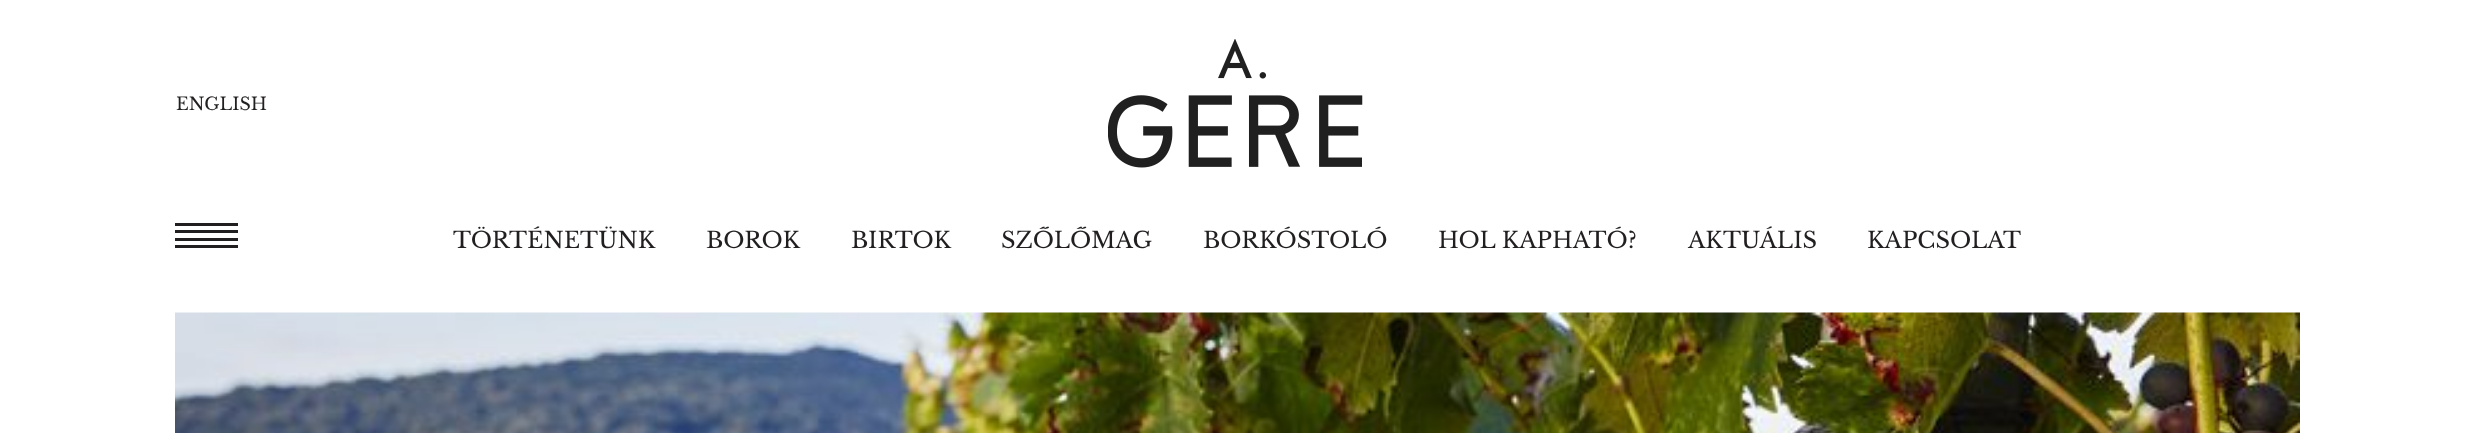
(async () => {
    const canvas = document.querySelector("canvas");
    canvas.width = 2475;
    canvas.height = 433;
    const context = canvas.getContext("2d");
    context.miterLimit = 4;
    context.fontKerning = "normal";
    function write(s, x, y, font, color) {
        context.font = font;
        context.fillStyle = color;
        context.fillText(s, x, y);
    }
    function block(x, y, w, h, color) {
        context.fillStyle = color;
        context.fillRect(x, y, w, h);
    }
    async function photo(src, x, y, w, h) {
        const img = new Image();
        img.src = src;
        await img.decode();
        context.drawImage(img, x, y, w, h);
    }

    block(0, 0, 2475, 433, "rgb(255, 255, 255)");
    write("ENGLISH", 176, 110, "17.5px Libre Baskerville", "rgb(34, 31, 32)");
    await photo("media/1.png", 1108, 39, 255, 129);
    block(175, 223, 63, 3, "rgb(34, 31, 32)");
    block(175, 230, 63, 3, "rgb(34, 31, 32)");
    block(175, 238, 63, 3, "rgb(34, 31, 32)");
    block(175, 245, 63, 3, "rgb(34, 31, 32)");
    write("TÖRTÉNETÜNK", 453, 248, "22.5px Libre Baskerville", "rgb(34, 31, 32)");
    write("BOROK", 706, 248, "22.5px Libre Baskerville", "rgb(34, 31, 32)");
    write("BIRTOK", 851, 248, "22.5px Libre Baskerville", "rgb(34, 31, 32)");
    write("SZŐLŐMAG", 1001, 248, "22.5px Libre Baskerville", "rgb(34, 31, 32)");
    write("BORKÓSTOLÓ", 1203, 248, "22.5px Libre Baskerville", "rgb(34, 31, 32)");
    write("HOL KAPHATÓ?", 1438, 248, "22.5px Libre Baskerville", "rgb(34, 31, 32)");
    write("AKTUÁLIS", 1688, 248, "22.5px Libre Baskerville", "rgb(34, 31, 32)");
    write("KAPCSOLAT", 1867, 248, "22.5px Libre Baskerville", "rgb(34, 31, 32)");
    await photo("media/2.png", 175, 312, 2125, 121);
})();
